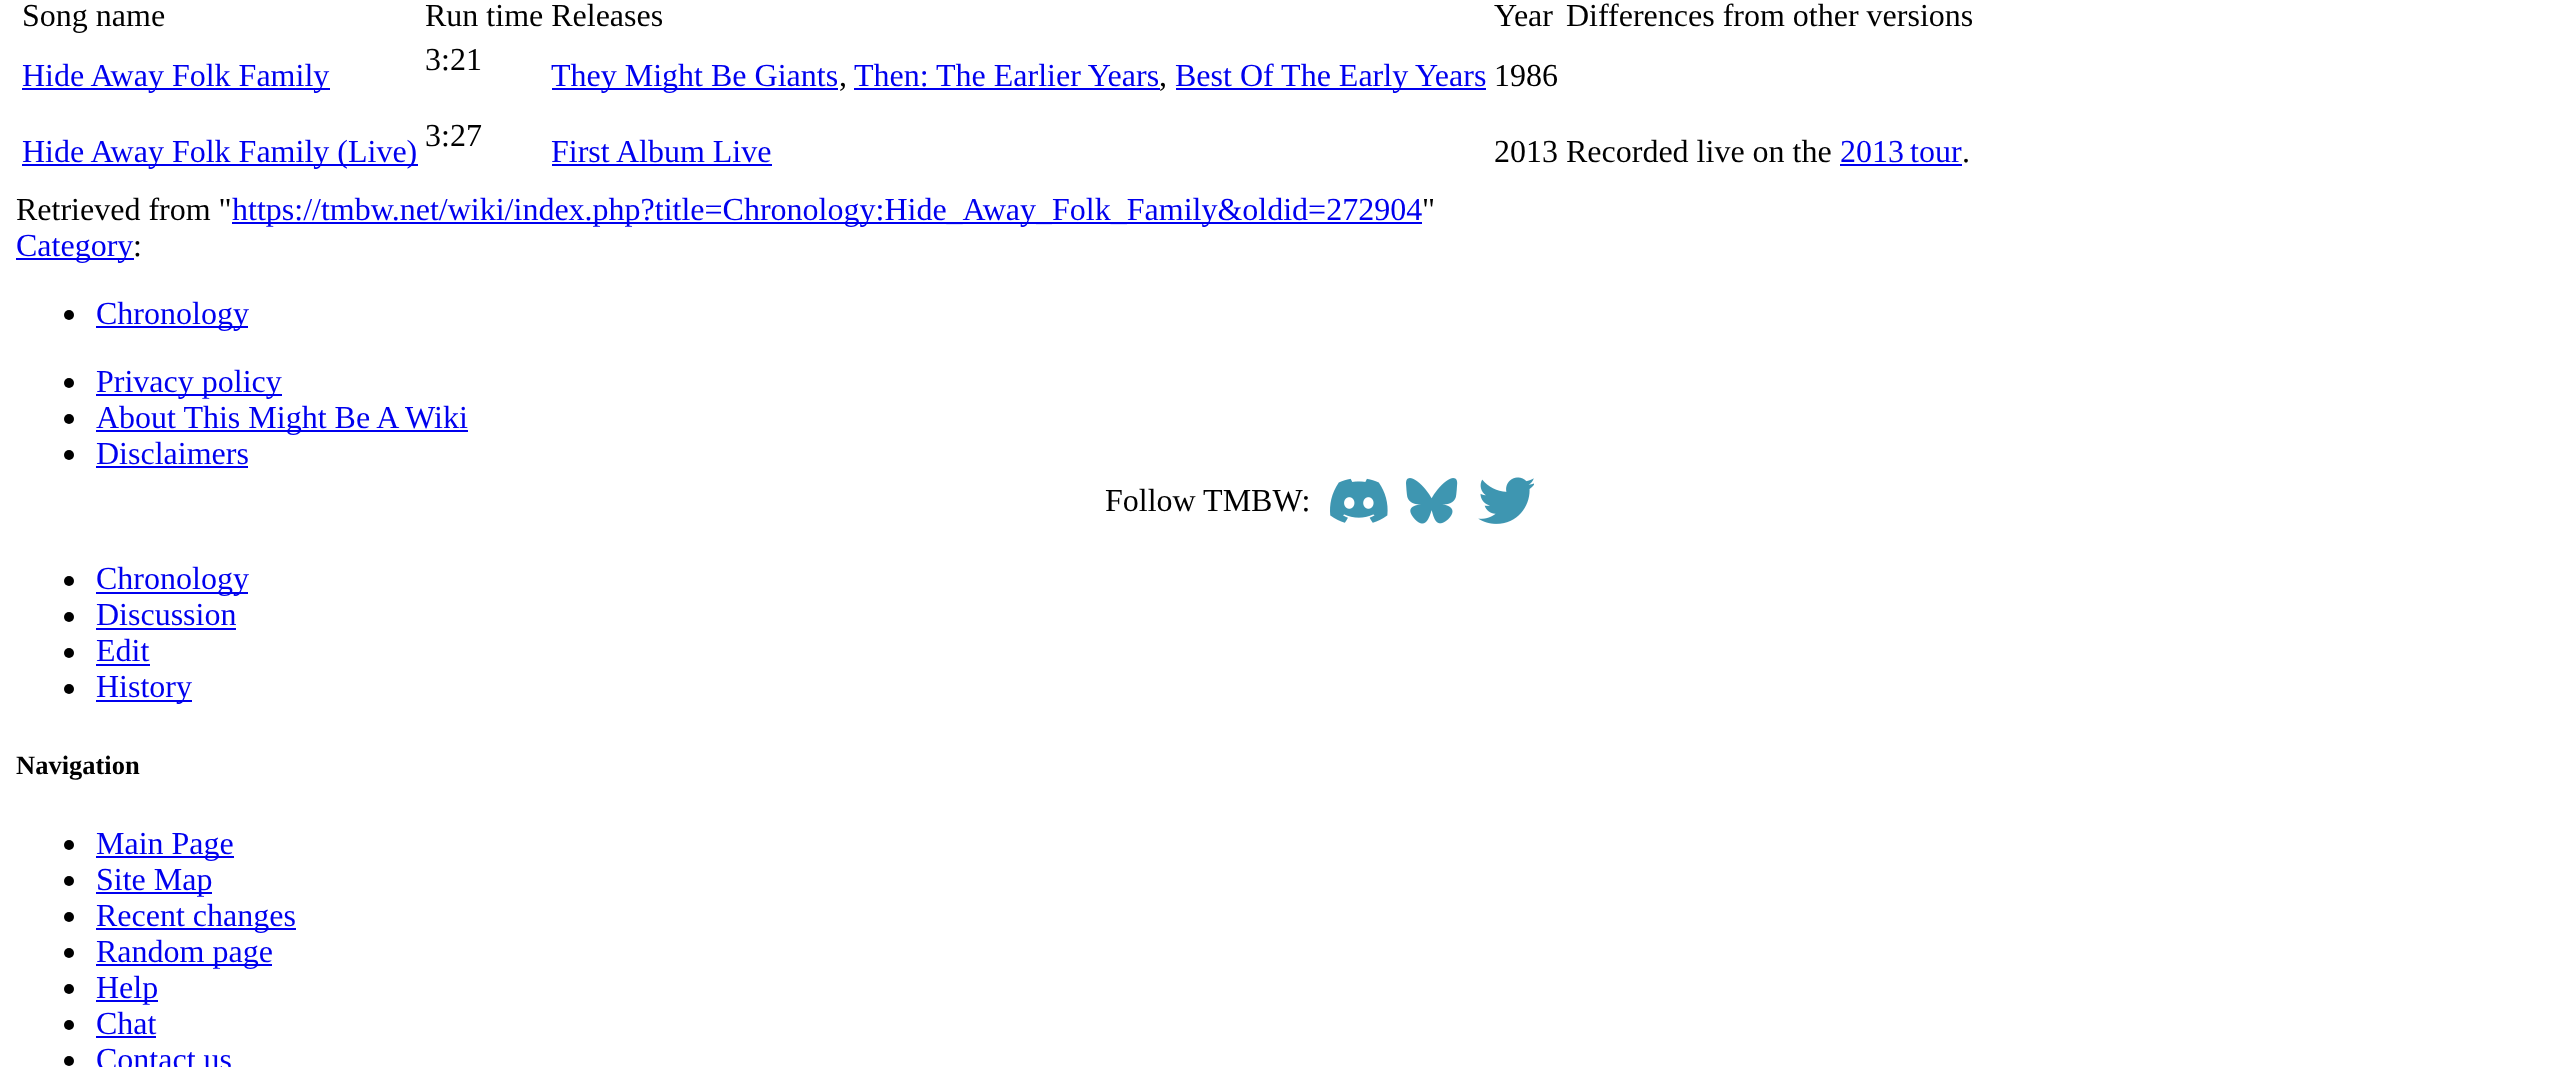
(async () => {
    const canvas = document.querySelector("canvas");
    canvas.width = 2560;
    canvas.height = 1067;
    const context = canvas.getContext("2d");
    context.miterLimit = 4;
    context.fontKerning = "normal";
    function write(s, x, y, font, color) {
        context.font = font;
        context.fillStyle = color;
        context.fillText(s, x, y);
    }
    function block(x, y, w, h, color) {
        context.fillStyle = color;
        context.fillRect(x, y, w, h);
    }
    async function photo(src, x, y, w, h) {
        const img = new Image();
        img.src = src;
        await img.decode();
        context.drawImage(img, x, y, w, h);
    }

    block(0, 0, 2560, 1067, "rgb(255, 255, 255)");
    write("Song name", 22, 26, "32px Liberation Serif", "rgb(0, 0, 0)");
    write("Run time Releases", 425, 26, "32px Liberation Serif", "rgb(0, 0, 0)");
    write("Year", 1494, 26, "32px Liberation Serif", "rgb(0, 0, 0)");
    write("Differences from other versions", 1566, 26, "32px Liberation Serif", "rgb(0, 0, 0)");
    write("3:21", 425, 70, "32px Liberation Serif", "rgb(0, 0, 0)");
    block(22, 88, 308, 2, "rgb(0, 0, 238)");
    write("Hide Away Folk Family", 22, 86, "32px Liberation Serif", "rgb(0, 0, 238)");
    block(552, 88, 286, 2, "rgb(0, 0, 238)");
    write("They Might Be Giants", 551, 86, "32px Liberation Serif", "rgb(0, 0, 238)");
    write(",", 839, 86, "32px Liberation Serif", "rgb(0, 0, 0)");
    write("Then: The Earlier Years", 854, 86, "32px Liberation Serif", "rgb(0, 0, 238)");
    block(854, 88, 306, 2, "rgb(0, 0, 238)");
    write(",", 1159, 86, "32px Liberation Serif", "rgb(0, 0, 0)");
    block(1176, 88, 310, 2, "rgb(0, 0, 238)");
    write("Best Of The Early Years", 1175, 86, "32px Liberation Serif", "rgb(0, 0, 238)");
    write("1986", 1494, 86, "32px Liberation Serif", "rgb(0, 0, 0)");
    write("3:27", 425, 146, "32px Liberation Serif", "rgb(0, 0, 0)");
    block(22, 164, 396, 2, "rgb(0, 0, 238)");
    write("Hide Away Folk Family (Live)", 22, 162, "32px Liberation Serif", "rgb(0, 0, 238)");
    write("First Album Live", 551, 162, "32px Liberation Serif", "rgb(0, 0, 238)");
    block(552, 164, 220, 2, "rgb(0, 0, 238)");
    write("2013 Recorded live on the", 1494, 162, "32px Liberation Serif", "rgb(0, 0, 0)");
    context.wordSpacing = "-2px";
    write("2013 tour", 1840, 162, "32px Liberation Serif", "rgb(0, 0, 238)");
    block(1840, 164, 122, 2, "rgb(0, 0, 238)");
    context.wordSpacing = "0px";
    write(".", 1962, 162, "32px Liberation Serif", "rgb(0, 0, 0)");
    write("Retrieved from \"", 16, 220, "32px Liberation Serif", "rgb(0, 0, 0)");
    block(232, 222, 1190, 2, "rgb(0, 0, 238)");
    write("https://tmbw.net/wiki/index.php?title=Chronology:Hide_Away_Folk_Family&oldid=272904", 232, 220, "32px Liberation Serif", "rgb(0, 0, 238)");
    write("\"", 1422, 220, "32px Liberation Serif", "rgb(0, 0, 0)");
    block(16, 258, 118, 2, "rgb(0, 0, 238)");
    write("Category", 16, 256, "32px Liberation Serif", "rgb(0, 0, 238)");
    write(":", 133, 256, "32px Liberation Serif", "rgb(0, 0, 0)");
    context.beginPath();
    context.arc(69, 315, 5, 0, Math.PI * 2);
    context.fill();
    block(96, 326, 152, 2, "rgb(0, 0, 238)");
    write("Chronology", 96, 324, "32px Liberation Serif", "rgb(0, 0, 238)");
    context.fillStyle = "rgb(0, 0, 0)";
    context.beginPath();
    context.arc(69, 383, 5, 0, Math.PI * 2);
    context.fill();
    block(96, 394, 186, 2, "rgb(0, 0, 238)");
    write("Privacy policy", 96, 392, "32px Liberation Serif", "rgb(0, 0, 238)");
    context.fillStyle = "rgb(0, 0, 0)";
    context.beginPath();
    context.arc(69, 419, 5, 0, Math.PI * 2);
    context.fill();
    block(96, 430, 372, 2, "rgb(0, 0, 238)");
    write("About This Might Be A Wiki", 96, 428, "32px Liberation Serif", "rgb(0, 0, 238)");
    context.fillStyle = "rgb(0, 0, 0)";
    context.beginPath();
    context.arc(69, 455, 5, 0, Math.PI * 2);
    context.fill();
    write("Disclaimers", 96, 464, "32px Liberation Serif", "rgb(0, 0, 238)");
    block(96, 466, 152, 2, "rgb(0, 0, 238)");
    write("Follow TMBW:", 1105, 511, "32px Liberation Serif", "rgb(0, 0, 0)");
    await photo("media/1.png", 1330, 478, 58, 45);
    await photo("media/2.png", 1406, 478, 52, 46);
    await photo("media/3.png", 1478, 477, 56, 47);
    context.beginPath();
    context.arc(69, 581, 5, 0, Math.PI * 2);
    context.fill();
    block(96, 592, 152, 2, "rgb(0, 0, 238)");
    write("Chronology", 96, 589, "32px Liberation Serif", "rgb(0, 0, 238)");
    context.fillStyle = "rgb(0, 0, 0)";
    context.beginPath();
    context.arc(69, 617, 5, 0, Math.PI * 2);
    context.fill();
    write("Discussion", 96, 625, "32px Liberation Serif", "rgb(0, 0, 238)");
    block(96, 628, 140, 2, "rgb(0, 0, 238)");
    context.fillStyle = "rgb(0, 0, 0)";
    context.beginPath();
    context.arc(69, 653, 5, 0, Math.PI * 2);
    context.fill();
    write("Edit", 96, 661, "32px Liberation Serif", "rgb(0, 0, 238)");
    block(96, 664, 54, 2, "rgb(0, 0, 238)");
    context.fillStyle = "rgb(0, 0, 0)";
    context.beginPath();
    context.arc(69, 689, 5, 0, Math.PI * 2);
    context.fill();
    block(96, 700, 96, 2, "rgb(0, 0, 238)");
    write("History", 96, 697, "32px Liberation Serif", "rgb(0, 0, 238)");
    write("Navigation", 16, 774, "bold 26.5px Liberation Serif", "rgb(0, 0, 0)");
    context.beginPath();
    context.arc(69, 845, 5, 0, Math.PI * 2);
    context.fill();
    block(96, 856, 138, 2, "rgb(0, 0, 238)");
    write("Main Page", 96, 854, "32px Liberation Serif", "rgb(0, 0, 238)");
    context.fillStyle = "rgb(0, 0, 0)";
    context.beginPath();
    context.arc(69, 881, 5, 0, Math.PI * 2);
    context.fill();
    block(96, 892, 116, 2, "rgb(0, 0, 238)");
    write("Site Map", 96, 890, "32px Liberation Serif", "rgb(0, 0, 238)");
    context.fillStyle = "rgb(0, 0, 0)";
    context.beginPath();
    context.arc(69, 917, 5, 0, Math.PI * 2);
    context.fill();
    block(96, 928, 200, 2, "rgb(0, 0, 238)");
    write("Recent changes", 96, 926, "32px Liberation Serif", "rgb(0, 0, 238)");
    context.fillStyle = "rgb(0, 0, 0)";
    context.beginPath();
    context.arc(69, 953, 5, 0, Math.PI * 2);
    context.fill();
    block(96, 964, 176, 2, "rgb(0, 0, 238)");
    write("Random page", 96, 962, "32px Liberation Serif", "rgb(0, 0, 238)");
    context.fillStyle = "rgb(0, 0, 0)";
    context.beginPath();
    context.arc(69, 989, 5, 0, Math.PI * 2);
    context.fill();
    block(96, 1000, 62, 2, "rgb(0, 0, 238)");
    write("Help", 96, 998, "32px Liberation Serif", "rgb(0, 0, 238)");
    context.fillStyle = "rgb(0, 0, 0)";
    context.beginPath();
    context.arc(69, 1025, 5, 0, Math.PI * 2);
    context.fill();
    write("Chat", 96, 1034, "32px Liberation Serif", "rgb(0, 0, 238)");
    block(96, 1036, 60, 2, "rgb(0, 0, 238)");
    context.fillStyle = "rgb(0, 0, 0)";
    context.beginPath();
    context.arc(69, 1061, 5, 0, Math.PI * 2);
    context.fill();
    write("Contact us", 96, 1070, "32px Liberation Serif", "rgb(0, 0, 238)");
})();
